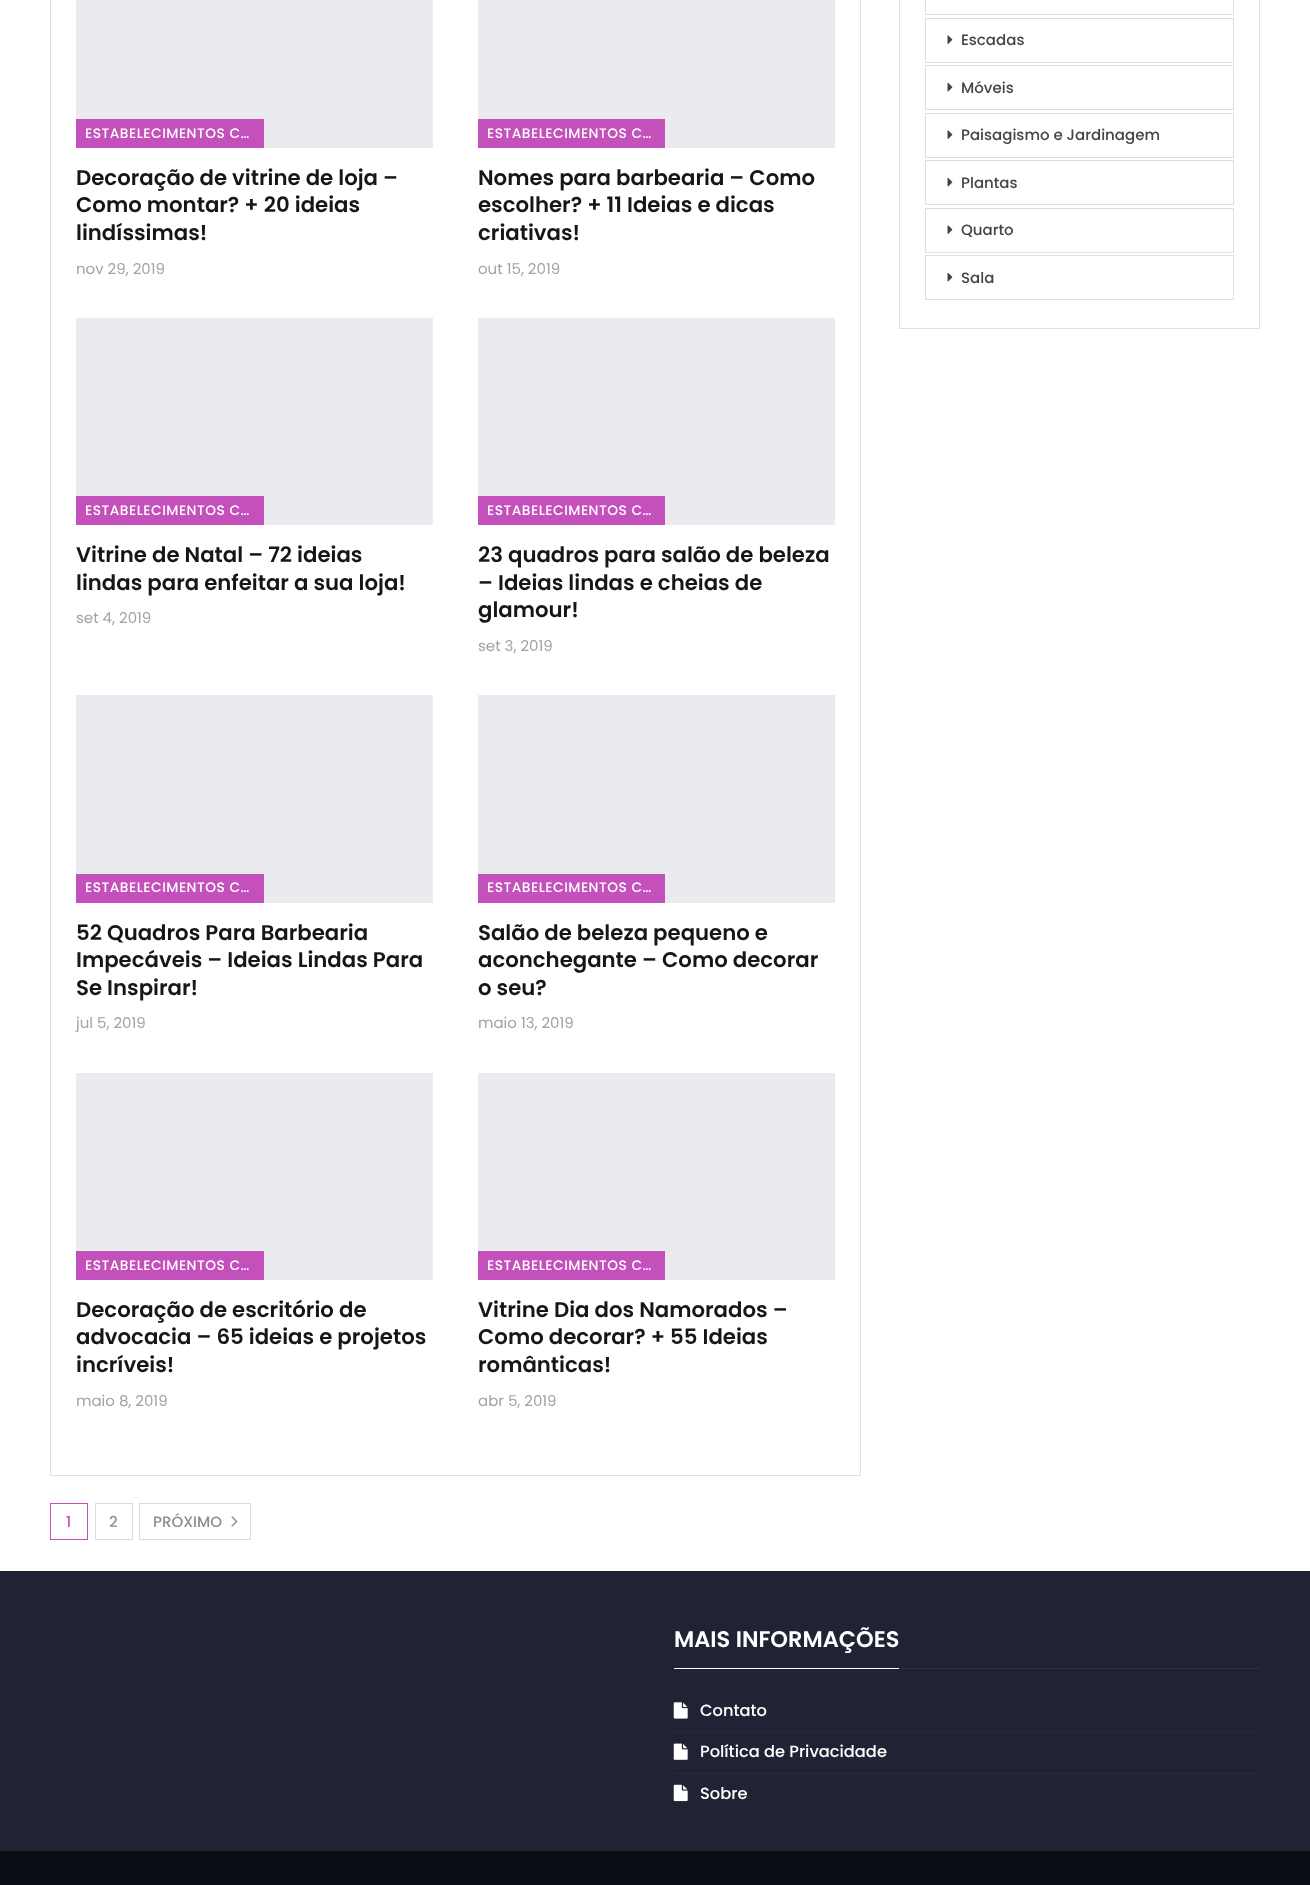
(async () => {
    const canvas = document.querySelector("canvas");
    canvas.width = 1310;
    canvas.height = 1885;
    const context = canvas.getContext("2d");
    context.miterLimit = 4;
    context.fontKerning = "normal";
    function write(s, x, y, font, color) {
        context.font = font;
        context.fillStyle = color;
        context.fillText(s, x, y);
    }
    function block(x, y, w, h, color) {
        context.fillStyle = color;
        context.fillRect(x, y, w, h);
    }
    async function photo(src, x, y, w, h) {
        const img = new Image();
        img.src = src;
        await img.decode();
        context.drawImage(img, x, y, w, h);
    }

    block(0, 0, 1310, 1885, "rgb(12, 14, 23)");
    block(0, 0, 1310, 1571, "rgb(255, 255, 255)");
    context.strokeStyle = "rgb(224, 224, 224)";
    context.strokeRect(50.5, -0.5, 810, 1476);
    block(76, 0, 357, 148, "rgb(233, 235, 238)");
    block(76, 119, 188, 29, "rgb(196, 80, 188)");
    context.letterSpacing = "0.5px";
    write("ESTABELECIMENTOS C…", 85, 138, "500 13.75px Poppins", "rgb(255, 255, 255)");
    context.letterSpacing = "0px";
    write("Decoração de vitrine de loja –", 76, 185, "600 21.25px Poppins", "rgb(22, 22, 22)");
    write("Como montar? + 20 ideias", 76, 212, "600 21.25px Poppins", "rgb(22, 22, 22)");
    write("lindíssimas!", 76, 240, "600 21.25px Poppins", "rgb(22, 22, 22)");
    write("nov 29, 2019", 76, 274, "15px Poppins", "rgb(163, 163, 163)");
    block(478, 0, 357, 148, "rgb(233, 235, 238)");
    block(478, 119, 187, 29, "rgb(196, 80, 188)");
    context.letterSpacing = "0.5px";
    write("ESTABELECIMENTOS C…", 487, 138, "500 13.75px Poppins", "rgb(255, 255, 255)");
    context.letterSpacing = "0px";
    write("Nomes para barbearia – Como", 478, 185, "600 21.25px Poppins", "rgb(22, 22, 22)");
    write("escolher? + 11 Ideias e dicas", 478, 212, "600 21.25px Poppins", "rgb(22, 22, 22)");
    write("criativas!", 478, 240, "600 21.25px Poppins", "rgb(22, 22, 22)");
    write("out 15, 2019", 478, 274, "15px Poppins", "rgb(163, 163, 163)");
    block(76, 318, 357, 207, "rgb(233, 235, 238)");
    block(76, 496, 188, 29, "rgb(196, 80, 188)");
    context.letterSpacing = "0.5px";
    write("ESTABELECIMENTOS C…", 85, 515, "500 13.75px Poppins", "rgb(255, 255, 255)");
    context.letterSpacing = "0px";
    write("Vitrine de Natal – 72 ideias", 76, 562, "600 21.25px Poppins", "rgb(22, 22, 22)");
    write("lindas para enfeitar a sua loja!", 76, 590, "600 21.25px Poppins", "rgb(22, 22, 22)");
    write("set 4, 2019", 76, 623, "15px Poppins", "rgb(163, 163, 163)");
    block(478, 318, 357, 207, "rgb(233, 235, 238)");
    block(478, 496, 187, 29, "rgb(196, 80, 188)");
    context.letterSpacing = "0.5px";
    write("ESTABELECIMENTOS C…", 487, 515, "500 13.75px Poppins", "rgb(255, 255, 255)");
    context.letterSpacing = "0px";
    write("23 quadros para salão de beleza", 478, 562, "600 21.25px Poppins", "rgb(22, 22, 22)");
    write("– Ideias lindas e cheias de", 478, 590, "600 21.25px Poppins", "rgb(22, 22, 22)");
    write("glamour!", 478, 617, "600 21.25px Poppins", "rgb(22, 22, 22)");
    write("set 3, 2019", 478, 651, "15px Poppins", "rgb(163, 163, 163)");
    block(76, 695, 357, 208, "rgb(233, 235, 238)");
    block(76, 874, 188, 29, "rgb(196, 80, 188)");
    context.letterSpacing = "0.5px";
    write("ESTABELECIMENTOS C…", 85, 892, "500 13.75px Poppins", "rgb(255, 255, 255)");
    context.letterSpacing = "0px";
    write("52 Quadros Para Barbearia", 76, 940, "600 21.25px Poppins", "rgb(22, 22, 22)");
    write("Impecáveis – Ideias Lindas Para", 76, 967, "600 21.25px Poppins", "rgb(22, 22, 22)");
    write("Se Inspirar!", 76, 995, "600 21.25px Poppins", "rgb(22, 22, 22)");
    write("jul 5, 2019", 76, 1028, "15px Poppins", "rgb(163, 163, 163)");
    block(478, 695, 357, 208, "rgb(233, 235, 238)");
    block(478, 874, 187, 29, "rgb(196, 80, 188)");
    context.letterSpacing = "0.5px";
    write("ESTABELECIMENTOS C…", 487, 892, "500 13.75px Poppins", "rgb(255, 255, 255)");
    context.letterSpacing = "0px";
    write("Salão de beleza pequeno e", 478, 940, "600 21.25px Poppins", "rgb(22, 22, 22)");
    write("aconchegante – Como decorar", 478, 967, "600 21.25px Poppins", "rgb(22, 22, 22)");
    write("o seu?", 478, 995, "600 21.25px Poppins", "rgb(22, 22, 22)");
    write("maio 13, 2019", 478, 1028, "15px Poppins", "rgb(163, 163, 163)");
    block(76, 1073, 357, 207, "rgb(233, 235, 238)");
    block(76, 1251, 188, 29, "rgb(196, 80, 188)");
    context.letterSpacing = "0.5px";
    write("ESTABELECIMENTOS C…", 85, 1270, "500 13.75px Poppins", "rgb(255, 255, 255)");
    context.letterSpacing = "0px";
    write("Decoração de escritório de", 76, 1317, "600 21.25px Poppins", "rgb(22, 22, 22)");
    write("advocacia – 65 ideias e projetos", 76, 1344, "600 21.25px Poppins", "rgb(22, 22, 22)");
    write("incríveis!", 76, 1372, "600 21.25px Poppins", "rgb(22, 22, 22)");
    write("maio 8, 2019", 76, 1406, "15px Poppins", "rgb(163, 163, 163)");
    block(478, 1073, 357, 207, "rgb(233, 235, 238)");
    block(478, 1251, 187, 29, "rgb(196, 80, 188)");
    context.letterSpacing = "0.5px";
    write("ESTABELECIMENTOS C…", 487, 1270, "500 13.75px Poppins", "rgb(255, 255, 255)");
    context.letterSpacing = "0px";
    write("Vitrine Dia dos Namorados –", 478, 1317, "600 21.25px Poppins", "rgb(22, 22, 22)");
    write("Como decorar? + 55 Ideias", 478, 1344, "600 21.25px Poppins", "rgb(22, 22, 22)");
    write("românticas!", 478, 1372, "600 21.25px Poppins", "rgb(22, 22, 22)");
    write("abr 5, 2019", 478, 1406, "15px Poppins", "rgb(163, 163, 163)");
    context.strokeStyle = "rgb(196, 80, 188)";
    context.strokeRect(50.5, 1503.5, 37, 36);
    write("1", 66, 1527, "500 15px Poppins", "rgb(196, 80, 188)");
    context.strokeStyle = "rgb(218, 218, 218)";
    context.strokeRect(95.5, 1503.5, 37, 36);
    write("2", 109, 1527, "500 15px Poppins", "rgb(138, 143, 146)");
    context.strokeRect(139.5, 1503.5, 111, 36);
    write("PRÓXIMO", 153, 1527, "500 15px Poppins", "rgb(138, 143, 146)");
    await photo("media/1.png", 231, 1516, 7, 11);
    context.strokeStyle = "rgb(224, 224, 224)";
    context.strokeRect(899.5, -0.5, 360, 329);
    context.strokeStyle = "rgb(222, 222, 222)";
    context.strokeRect(925.5, -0.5, 308, 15);
    context.strokeRect(925.5, 18.5, 308, 44);
    await photo("media/2.png", 947, 35, 6, 9);
    write("Escadas", 961, 45, "500 15px Poppins", "rgb(68, 68, 68)");
    context.strokeRect(925.5, 65.5, 308, 44);
    await photo("media/3.png", 947, 82, 6, 10);
    write("Móveis", 961, 93, "500 15px Poppins", "rgb(68, 68, 68)");
    context.strokeRect(925.5, 113.5, 308, 44);
    await photo("media/2.png", 947, 130, 6, 9);
    write("Paisagismo e Jardinagem", 961, 140, "500 15px Poppins", "rgb(68, 68, 68)");
    context.strokeRect(925.5, 160.5, 308, 44);
    await photo("media/3.png", 947, 177, 6, 10);
    write("Plantas", 961, 188, "500 15px Poppins", "rgb(68, 68, 68)");
    context.strokeRect(925.5, 208.5, 308, 44);
    await photo("media/2.png", 947, 225, 6, 9);
    write("Quarto", 961, 235, "500 15px Poppins", "rgb(68, 68, 68)");
    context.strokeRect(925.5, 255.5, 308, 44);
    await photo("media/3.png", 947, 272, 6, 10);
    write("Sala", 961, 283, "500 15px Poppins", "rgb(68, 68, 68)");
    block(0, 1571, 1310, 280, "rgb(31, 35, 51)");
    write("MAIS INFORMAÇÕES", 674, 1647, "600 22.5px Poppins", "rgb(255, 255, 255)");
    block(674, 1668, 225, 1, "rgb(255, 255, 255)");
    block(899, 1668, 361, 1, "rgb(44, 48, 63)");
    block(674, 1731, 586, 1, "rgb(40, 44, 59)");
    await photo("media/4.png", 673, 1702, 15, 17);
    write("Contato", 700, 1716, "500 16.25px Poppins", "rgb(255, 255, 255)");
    block(674, 1773, 586, 1, "rgb(40, 44, 59)");
    await photo("media/5.png", 673, 1743, 15, 17);
    write("Política de Privacidade", 700, 1757, "500 16.25px Poppins", "rgb(255, 255, 255)");
    await photo("media/6.png", 673, 1784, 15, 18);
    write("Sobre", 700, 1799, "500 16.25px Poppins", "rgb(255, 255, 255)");
})();
